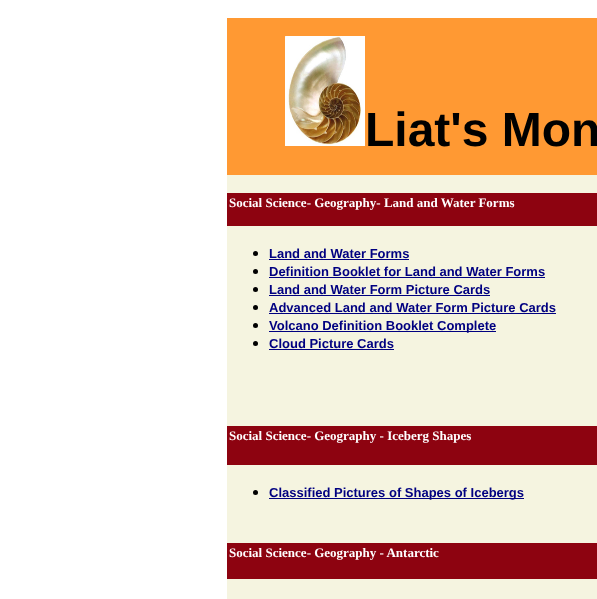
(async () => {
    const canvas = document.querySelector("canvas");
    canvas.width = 597;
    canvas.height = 599;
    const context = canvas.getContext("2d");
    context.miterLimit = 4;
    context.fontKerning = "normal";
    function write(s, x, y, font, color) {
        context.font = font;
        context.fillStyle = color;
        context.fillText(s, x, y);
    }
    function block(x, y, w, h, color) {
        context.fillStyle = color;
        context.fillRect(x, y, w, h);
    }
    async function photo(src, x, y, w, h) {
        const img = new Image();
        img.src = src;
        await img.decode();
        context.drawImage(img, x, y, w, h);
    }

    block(0, 0, 597, 599, "rgb(255, 255, 255)");
    block(227, 175, 370, 424, "rgb(245, 244, 224)");
    block(227, 18, 370, 157, "rgb(255, 153, 51)");
    await photo("media/1.png", 285, 36, 80, 110);
    write("Liat's Mon", 365, 146, "bold 48px Liberation Sans", "rgb(0, 0, 0)");
    block(227, 193, 370, 33, "rgb(141, 3, 16)");
    write("Social Science- Geography- Land and Water Forms", 229, 207, "bold 13px Liberation Serif", "rgb(255, 255, 255)");
    context.fillStyle = "rgb(0, 0, 0)";
    context.beginPath();
    context.arc(255.5, 253.5, 2.5, 0, Math.PI * 2);
    context.fill();
    write("Land and Water Forms", 269, 258, "bold 13px Liberation Sans", "rgb(0, 0, 128)");
    block(269, 259, 140, 1, "rgb(0, 0, 128)");
    context.fillStyle = "rgb(0, 0, 0)";
    context.beginPath();
    context.arc(255.5, 271.5, 2.5, 0, Math.PI * 2);
    context.fill();
    write("Definition Booklet for Land and Water Forms", 269, 276, "bold 13px Liberation Sans", "rgb(0, 0, 128)");
    block(269, 277, 276, 1, "rgb(0, 0, 128)");
    context.fillStyle = "rgb(0, 0, 0)";
    context.beginPath();
    context.arc(255.5, 289.5, 2.5, 0, Math.PI * 2);
    context.fill();
    write("Land and Water Form Picture Cards", 269, 294, "bold 13px Liberation Sans", "rgb(0, 0, 128)");
    block(269, 295, 221, 1, "rgb(0, 0, 128)");
    context.fillStyle = "rgb(0, 0, 0)";
    context.beginPath();
    context.arc(255.5, 307.5, 2.5, 0, Math.PI * 2);
    context.fill();
    write("Advanced Land and Water Form Picture Cards", 269, 312, "bold 13px Liberation Sans", "rgb(0, 0, 128)");
    block(269, 313, 287, 1, "rgb(0, 0, 128)");
    context.fillStyle = "rgb(0, 0, 0)";
    context.beginPath();
    context.arc(255.5, 325.5, 2.5, 0, Math.PI * 2);
    context.fill();
    block(269, 331, 227, 1, "rgb(0, 0, 128)");
    write("Volcano Definition Booklet Complete", 269, 330, "bold 13px Liberation Sans", "rgb(0, 0, 128)");
    context.fillStyle = "rgb(0, 0, 0)";
    context.beginPath();
    context.arc(255.5, 343.5, 2.5, 0, Math.PI * 2);
    context.fill();
    write("Cloud Picture Cards", 269, 348, "bold 13px Liberation Sans", "rgb(0, 0, 128)");
    block(269, 349, 125, 1, "rgb(0, 0, 128)");
    block(227, 426, 370, 39, "rgb(141, 3, 16)");
    write("Social Science- Geography - Iceberg Shapes", 229, 440, "bold 13px Liberation Serif", "rgb(255, 255, 255)");
    context.fillStyle = "rgb(0, 0, 0)";
    context.beginPath();
    context.arc(255.5, 492.5, 2.5, 0, Math.PI * 2);
    context.fill();
    block(269, 498, 255, 1, "rgb(0, 0, 128)");
    write("Classified Pictures of Shapes of Icebergs", 269, 497, "bold 13px Liberation Sans", "rgb(0, 0, 128)");
    block(227, 543, 370, 36, "rgb(141, 3, 16)");
    write("Social Science- Geography - Antarctic", 229, 557, "bold 13px Liberation Serif", "rgb(255, 255, 255)");
})();
